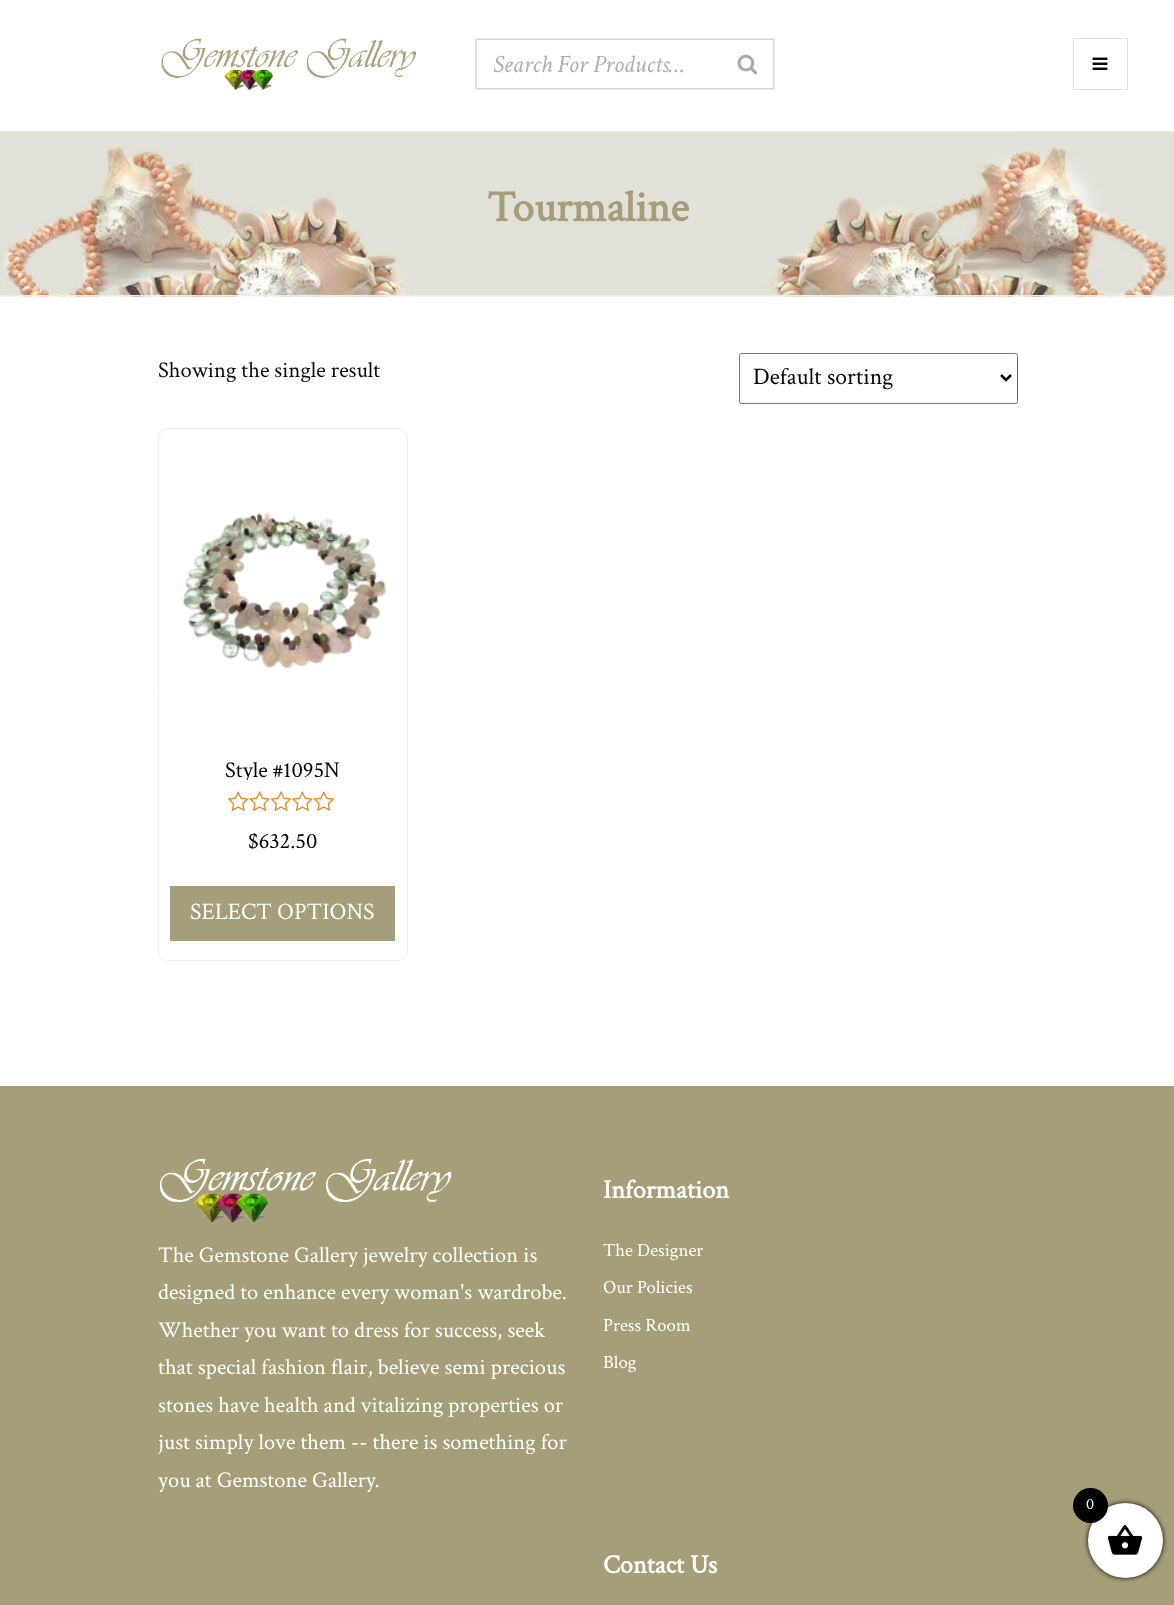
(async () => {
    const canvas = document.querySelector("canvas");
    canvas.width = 1174;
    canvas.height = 1605;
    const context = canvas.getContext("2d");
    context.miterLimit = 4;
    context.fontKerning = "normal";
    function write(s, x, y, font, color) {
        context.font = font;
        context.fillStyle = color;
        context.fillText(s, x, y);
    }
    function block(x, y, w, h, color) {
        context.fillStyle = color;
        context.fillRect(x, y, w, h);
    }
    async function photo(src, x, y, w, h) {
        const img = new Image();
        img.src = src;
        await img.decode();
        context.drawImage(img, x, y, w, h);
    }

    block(0, 0, 1174, 1605, "rgb(255, 255, 255)");
    await photo("media/1.png", 161, 38, 255, 53);
    context.strokeStyle = "rgb(235, 235, 235)";
    context.strokeRect(475.5, 38.5, 299, 51);
    context.strokeStyle = "rgb(214, 214, 214)";
    context.strokeRect(476.5, 39.5, 297, 49);
    write("Search For Products…", 493, 72, "italic 25px Crimson Text", "rgb(174, 174, 174)");
    await photo("media/2.png", 737, 54, 21, 21);
    context.strokeStyle = "rgb(221, 221, 221)";
    context.strokeRect(1073.5, 38.5, 54, 51);
    await photo("media/3.png", 1092, 57, 16, 13);
    await photo("media/4.png", 0, 131, 1174, 166);
    block(0, 295, 1174, 1, "rgb(235, 235, 235)");
    block(158, 131, 860, 1, "rgb(235, 235, 235)");
    write("Tourmaline", 487, 221, "bold 43.75px Crimson Text", "rgb(166, 157, 122)");
    write("Showing the single result", 158, 377, "22.5px Crimson Text", "rgb(10, 10, 10)");
    context.beginPath();
    context.roundRect(739.5, 353.5, 278, 50, 2);
    context.strokeStyle = "rgb(118, 118, 118)";
    context.stroke();
    context.beginPath();
    context.moveTo(1001, 375);
    context.lineTo(1006, 380);
    context.lineTo(1011, 375);
    context.strokeStyle = "rgb(0, 0, 0)";
    context.lineWidth = 2.5;
    context.stroke();
    write("Default sorting", 753, 384, "23.75px Crimson Text", "rgb(0, 0, 0)");
    context.beginPath();
    context.roundRect(158.5, 428.5, 249, 532, 9.5);
    context.strokeStyle = "rgb(238, 238, 238)";
    context.lineWidth = 1;
    context.stroke();
    await photo("media/5.png", 183, 512, 204, 156);
    context.save();
    context.beginPath();
    context.rect(165, 748, 235, 32);
    context.clip();
    write("Style #1095N", 225, 777, "22.5px Crimson Text", "rgb(0, 0, 0)");
    context.restore();
    await photo("media/6.png", 228, 791, 107, 21);
    write("$632.50", 248, 848, "22.5px Crimson Text", "rgb(0, 0, 0)");
    block(170, 886, 225, 55, "rgb(166, 157, 122)");
    write("SELECT OPTIONS", 190, 919, "23.75px Crimson Text", "rgb(255, 255, 255)");
    block(0, 1086, 1174, 519, "rgb(166, 157, 121)");
    await photo("media/7.png", 159, 1158, 293, 66);
    write("The Gemstone Gallery jewelry collection is", 158, 1262, "22.5px Crimson Text", "rgb(255, 255, 255)");
    write("designed to enhance every woman's wardrobe.", 158, 1299, "22.5px Crimson Text", "rgb(255, 255, 255)");
    write("Whether you want to dress for success, seek", 158, 1337, "22.5px Crimson Text", "rgb(255, 255, 255)");
    write("that special fashion flair, believe semi precious", 158, 1374, "22.5px Crimson Text", "rgb(255, 255, 255)");
    write("stones have health and vitalizing properties or", 158, 1412, "22.5px Crimson Text", "rgb(255, 255, 255)");
    write("just simply love them -- there is something for", 158, 1449, "22.5px Crimson Text", "rgb(255, 255, 255)");
    write("you at Gemstone Gallery.", 158, 1487, "22.5px Crimson Text", "rgb(255, 255, 255)");
    write("Information", 603, 1198, "bold 26.25px Crimson Text", "rgb(255, 255, 255)");
    write("The Designer", 603, 1256, "18.75px Crimson Text", "rgb(255, 255, 255)");
    write("Our Policies", 603, 1293, "18.75px Crimson Text", "rgb(255, 255, 255)");
    write("Press Room", 603, 1331, "18.75px Crimson Text", "rgb(255, 255, 255)");
    write("Blog", 603, 1368, "18.75px Crimson Text", "rgb(255, 255, 255)");
    write("Contact Us", 603, 1573, "bold 26.25px Crimson Text", "rgb(255, 255, 255)");
    context.fillStyle = "rgb(0, 0, 0)";
    context.filter = "blur(2.5px)";
    context.beginPath();
    context.roundRect(1088, 1503, 75, 75, 37.5);
    context.fill();
    context.filter = "none";
    context.fillStyle = "rgb(255, 255, 255)";
    context.beginPath();
    context.arc(1125.5, 1540.5, 37.5, 0, Math.PI * 2);
    context.fill();
    context.fillStyle = "rgb(0, 0, 0)";
    context.beginPath();
    context.arc(1090.5, 1505.5, 17.5, 0, Math.PI * 2);
    context.fill();
    write("0", 1086, 1509, "16px Crimson Text", "rgb(255, 255, 255)");
    await photo("media/8.png", 1107, 1525, 36, 30);
})();
